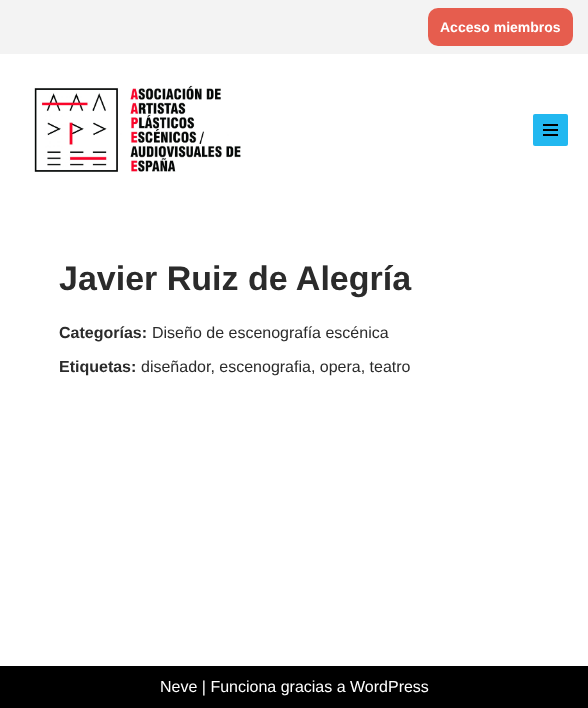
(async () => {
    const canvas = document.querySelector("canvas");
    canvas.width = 588;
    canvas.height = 708;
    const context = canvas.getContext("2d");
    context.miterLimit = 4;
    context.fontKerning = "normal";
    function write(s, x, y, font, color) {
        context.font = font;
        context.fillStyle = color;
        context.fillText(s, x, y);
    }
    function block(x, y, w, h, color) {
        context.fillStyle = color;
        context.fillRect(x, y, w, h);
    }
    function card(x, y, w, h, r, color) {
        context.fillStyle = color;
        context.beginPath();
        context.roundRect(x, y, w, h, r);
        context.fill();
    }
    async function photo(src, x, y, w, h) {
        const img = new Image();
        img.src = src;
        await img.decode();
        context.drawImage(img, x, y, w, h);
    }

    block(0, 0, 588, 708, "rgb(255, 255, 255)");
    block(0, 0, 588, 54, "rgb(243, 243, 243)");
    card(428, 8, 145, 38, 10, "rgb(230, 93, 78)");
    write("Acceso miembros", 440, 32, "bold 14px Liberation Sans", "rgb(255, 255, 255)");
    await photo("media/1.png", 34, 85, 207, 87);
    card(533, 114, 35, 32, 2, "rgb(34, 184, 240)");
    block(543, 124, 15, 2, "rgb(0, 0, 0)");
    block(543, 129, 15, 2, "rgb(0, 0, 0)");
    block(543, 134, 15, 2, "rgb(0, 0, 0)");
    write("Javier Ruiz de Alegría", 59, 290, "bold 34px Liberation Sans", "rgb(43, 43, 43)");
    write("Categorías:", 59, 338, "bold 16px Liberation Sans", "rgb(43, 43, 43)");
    write("Diseño de escenografía escénica", 152, 338, "16px Liberation Sans", "rgb(43, 43, 43)");
    write("Etiquetas:", 59, 372, "bold 16px Liberation Sans", "rgb(43, 43, 43)");
    write("diseñador, escenografia, opera, teatro", 141, 372, "16px Liberation Sans", "rgb(43, 43, 43)");
    block(0, 666, 588, 42, "rgb(0, 0, 0)");
    write("Neve | Funciona gracias a WordPress", 160, 692, "16px Liberation Sans", "rgb(255, 255, 255)");
})();
